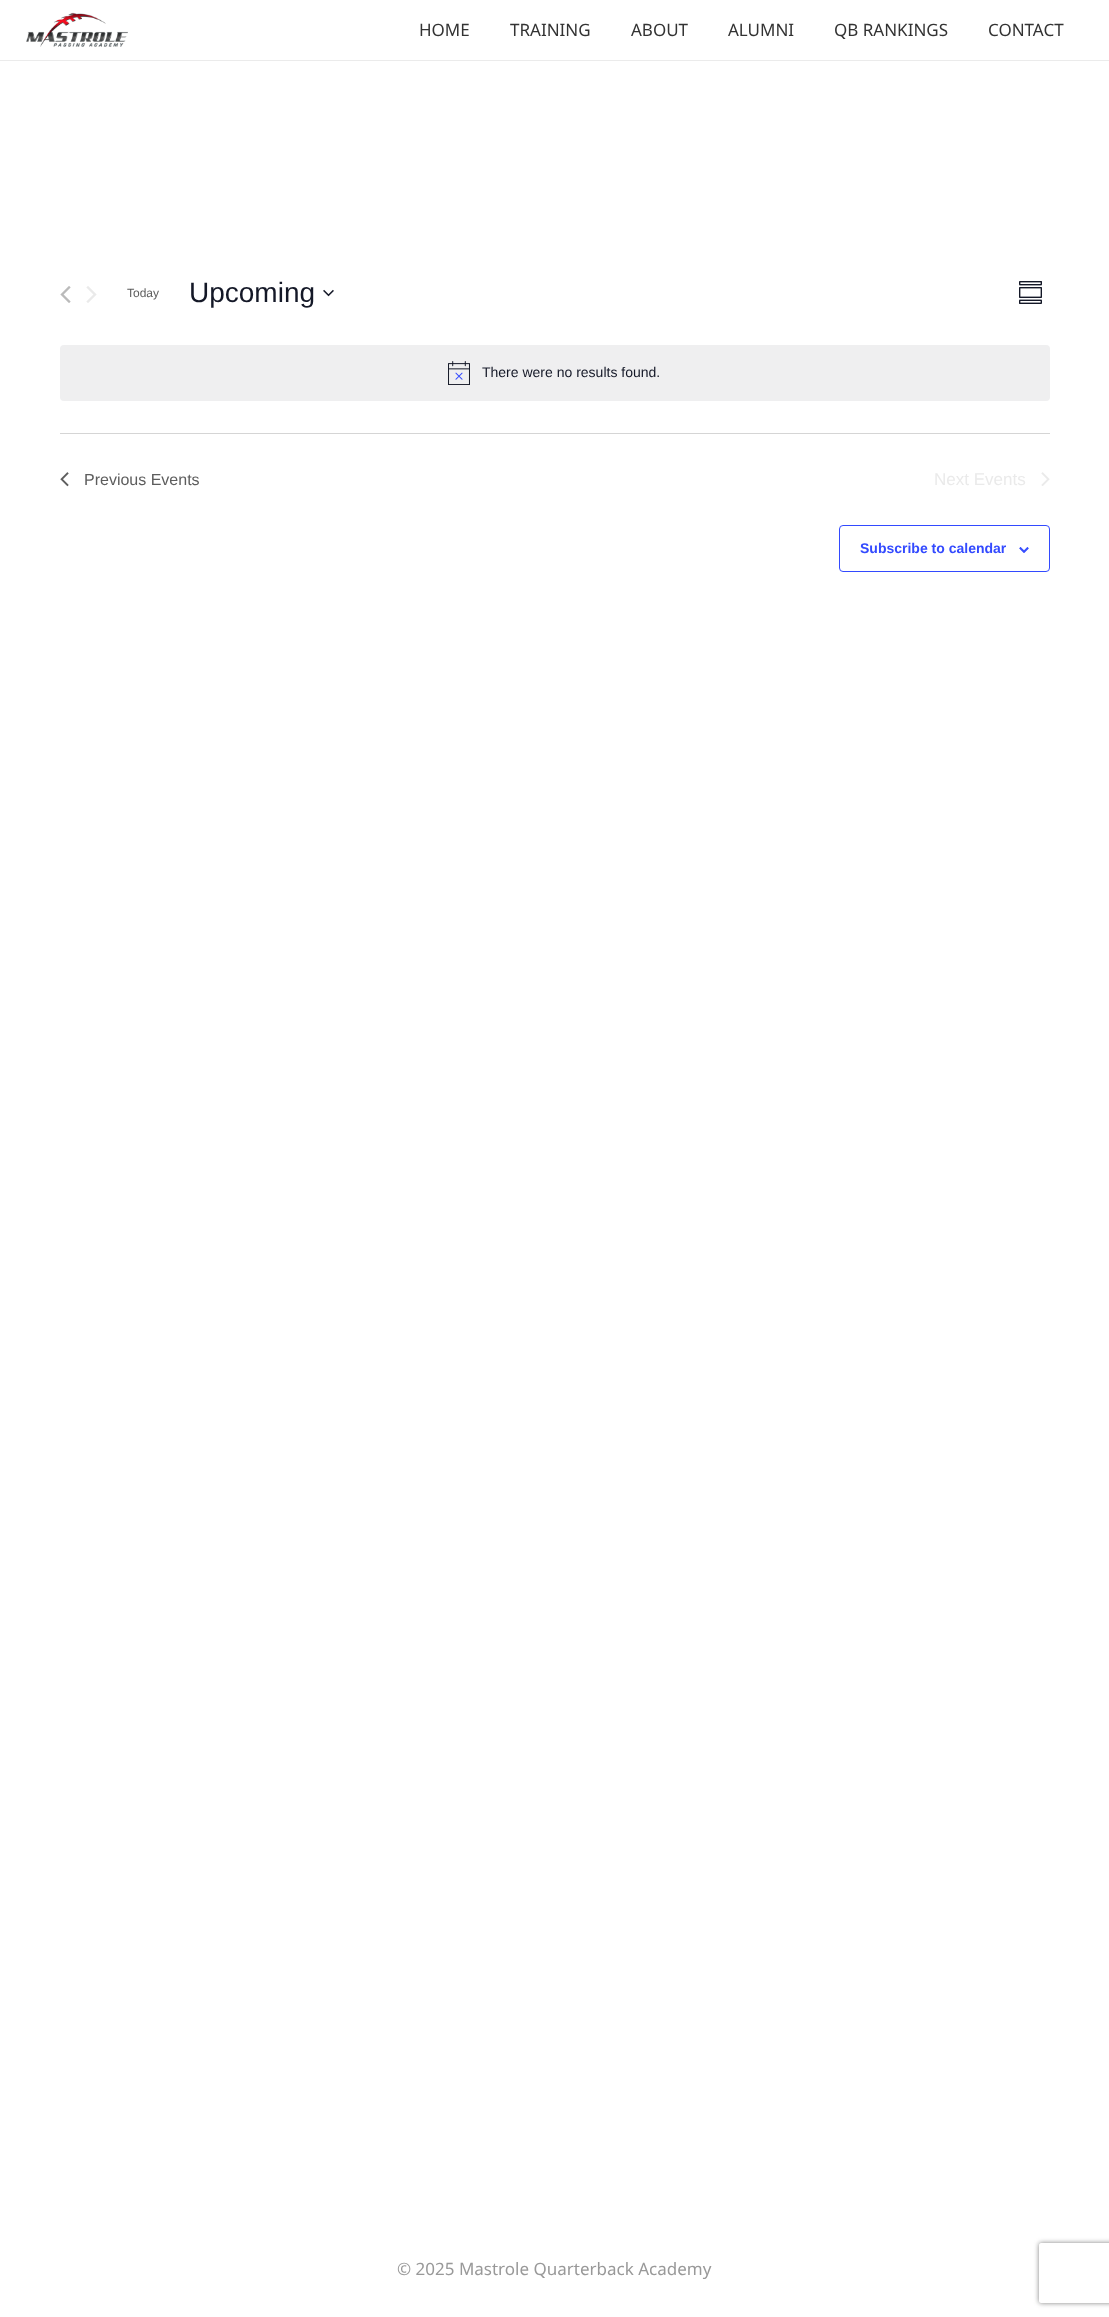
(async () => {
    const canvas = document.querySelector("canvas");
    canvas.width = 1109;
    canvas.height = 2317;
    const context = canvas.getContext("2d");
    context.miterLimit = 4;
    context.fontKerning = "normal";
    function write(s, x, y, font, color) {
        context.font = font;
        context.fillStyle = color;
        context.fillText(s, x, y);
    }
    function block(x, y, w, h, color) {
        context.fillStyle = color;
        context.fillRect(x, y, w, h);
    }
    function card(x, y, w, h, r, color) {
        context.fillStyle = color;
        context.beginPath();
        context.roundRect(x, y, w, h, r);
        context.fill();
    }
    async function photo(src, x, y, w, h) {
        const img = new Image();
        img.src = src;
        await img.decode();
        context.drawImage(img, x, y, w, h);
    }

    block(0, 0, 1109, 2317, "rgb(255, 255, 255)");
    block(0, 60, 1109, 1, "rgb(235, 235, 235)");
    await photo("media/1.png", 26, 12, 102, 35);
    write("HOME", 419, 36, "17px Noto Sans", "rgb(51, 51, 51)");
    write("TRAINING", 510, 36, "17px Noto Sans", "rgb(51, 51, 51)");
    write("ABOUT", 631, 36, "17px Noto Sans", "rgb(51, 51, 51)");
    write("ALUMNI", 728, 36, "17px Noto Sans", "rgb(51, 51, 51)");
    write("QB RANKINGS", 834, 36, "17px Noto Sans", "rgb(51, 51, 51)");
    write("CONTACT", 988, 36, "17px Noto Sans", "rgb(51, 51, 51)");
    await photo("media/2.png", 60, 286, 11, 17);
    await photo("media/3.png", 86, 286, 11, 17);
    write("Today", 127, 297, "12px Liberation Sans", "rgb(93, 93, 93)");
    write("Upcoming", 189, 302, "28px Liberation Sans", "rgb(20, 24, 39)");
    await photo("media/4.png", 323, 289, 11, 8);
    await photo("media/5.png", 1019, 281, 23, 23);
    card(60, 345, 990, 56, 4, "rgb(239, 239, 240)");
    await photo("media/6.png", 448, 361, 22, 24);
    write("There were no results found.", 482, 377, "14px Liberation Sans", "rgb(20, 24, 39)");
    block(60, 433, 990, 1, "rgb(213, 213, 213)");
    await photo("media/7.png", 60, 472, 9, 15);
    write("Previous Events", 84, 485, "16px Liberation Sans", "rgb(93, 93, 93)");
    write("Next Events", 934, 485, "17px Liberation Sans", "rgb(234, 234, 234)");
    await photo("media/8.png", 1041, 472, 9, 14);
    context.beginPath();
    context.roundRect(839.5, 525.5, 210, 46, 3.5);
    context.strokeStyle = "rgb(51, 74, 255)";
    context.stroke();
    write("Subscribe to calendar", 860, 553, "bold 14px Liberation Sans", "rgb(51, 74, 255)");
    await photo("media/9.png", 1019, 547, 10, 6);
    write("© 2025 Mastrole Quarterback Academy", 397, 2275, "17px Noto Sans", "rgb(153, 153, 153)");
    context.save();
    context.beginPath();
    context.moveTo(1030, 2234);
    context.lineTo(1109, 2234);
    context.lineTo(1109, 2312);
    context.lineTo(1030, 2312);
    context.closePath();
    context.moveTo(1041, 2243);
    context.lineTo(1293, 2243);
    context.bezierCurveTo(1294, 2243, 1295, 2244, 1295, 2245);
    context.lineTo(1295, 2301);
    context.bezierCurveTo(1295, 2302, 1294, 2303, 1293, 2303);
    context.lineTo(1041, 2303);
    context.bezierCurveTo(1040, 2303, 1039, 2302, 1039, 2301);
    context.lineTo(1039, 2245);
    context.bezierCurveTo(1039, 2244, 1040, 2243, 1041, 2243);
    context.closePath();
    context.clip("evenodd");
    context.fillStyle = "rgb(128, 128, 128)";
    context.filter = "blur(2.5px)";
    context.beginPath();
    context.roundRect(1039, 2243, 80, 60, 2);
    context.fill();
    context.filter = "none";
    context.restore();
})();
